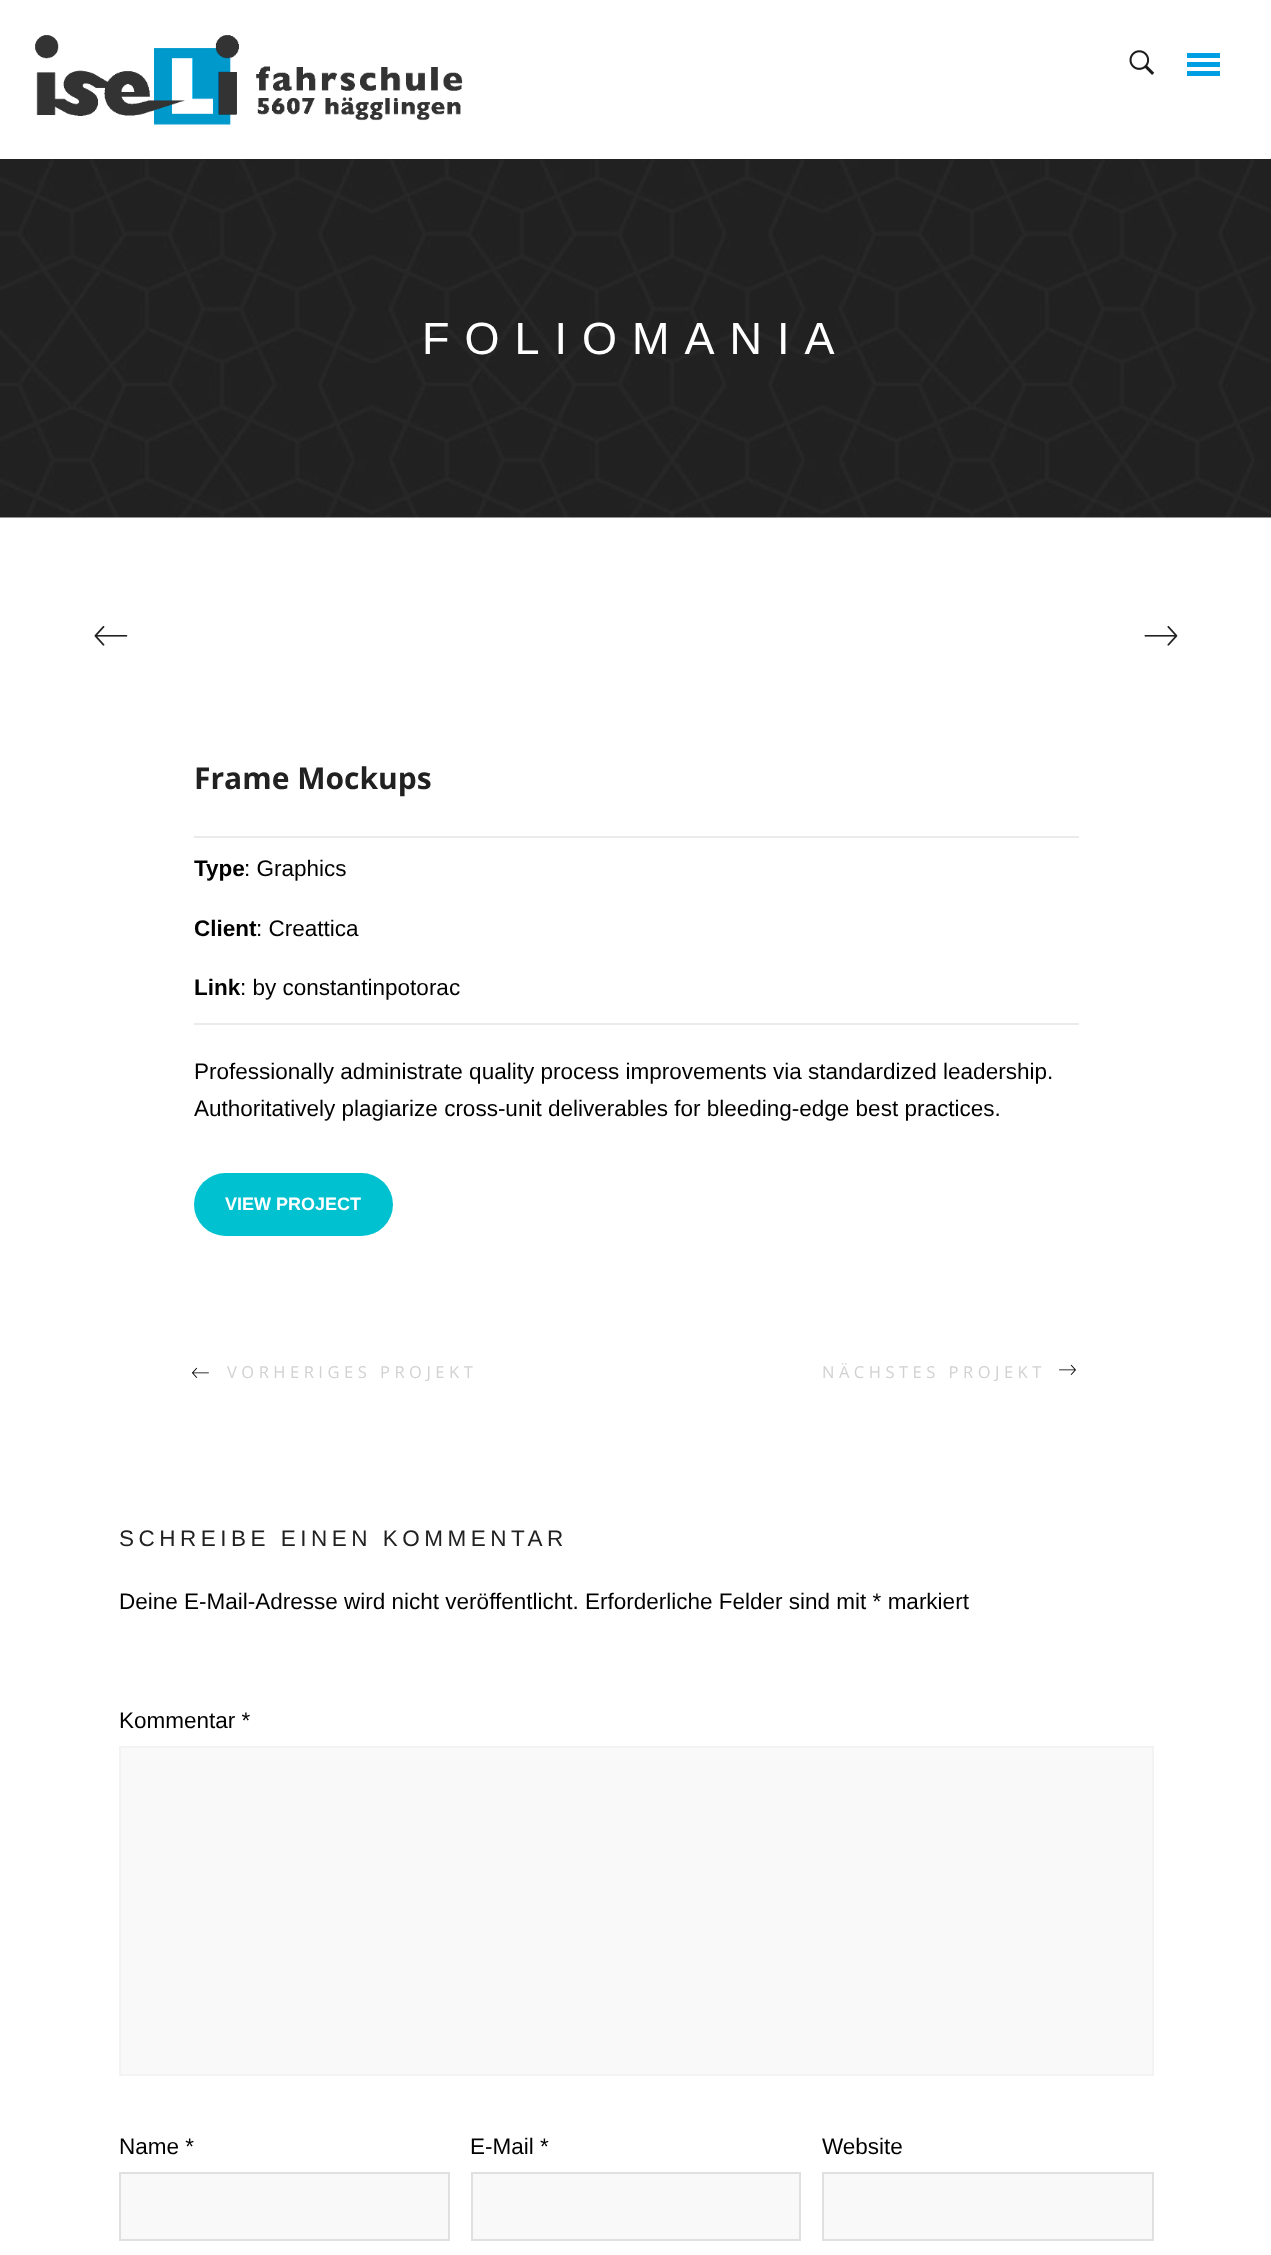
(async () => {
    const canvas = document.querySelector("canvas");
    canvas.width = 1271;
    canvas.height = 2255;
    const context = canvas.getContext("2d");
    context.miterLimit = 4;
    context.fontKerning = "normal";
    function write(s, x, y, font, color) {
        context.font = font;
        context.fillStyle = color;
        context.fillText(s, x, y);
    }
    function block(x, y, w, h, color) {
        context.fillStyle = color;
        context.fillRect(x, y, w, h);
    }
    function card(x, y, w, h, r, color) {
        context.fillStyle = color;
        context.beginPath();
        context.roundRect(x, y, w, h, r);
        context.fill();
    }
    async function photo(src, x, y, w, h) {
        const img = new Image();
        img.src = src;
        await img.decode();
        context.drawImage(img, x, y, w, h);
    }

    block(0, 0, 1271, 2255, "rgb(255, 255, 255)");
    await photo("media/1.png", 35, 35, 428, 90);
    await photo("media/2.png", 1129, 50, 26, 25);
    block(1187, 71, 33, 5, "rgb(0, 159, 227)");
    block(1187, 62, 33, 5, "rgb(0, 159, 227)");
    block(1187, 53, 33, 5, "rgb(0, 159, 227)");
    await photo("media/3.png", 0, 159, 1271, 359);
    context.letterSpacing = "15px";
    write("FOLIOMANIA", 422, 354, "45px Liberation Sans", "rgb(255, 255, 255)");
    await photo("media/4.png", 94, 625, 34, 21);
    await photo("media/5.png", 1144, 625, 34, 21);
    context.letterSpacing = "0px";
    write("Frame Mockups", 194, 789, "bold 30px Open Sans", "rgb(33, 33, 33)");
    block(194, 836, 885, 2, "rgb(235, 235, 235)");
    write("Type", 194, 876, "bold 22.5px Liberation Sans", "rgb(0, 0, 0)");
    write(": Graphics", 244, 876, "22.5px Liberation Sans", "rgb(0, 0, 0)");
    write("Client", 194, 936, "bold 22.5px Liberation Sans", "rgb(0, 0, 0)");
    write(": Creattica", 256, 936, "22.5px Liberation Sans", "rgb(0, 0, 0)");
    write("Link", 194, 995, "bold 22.5px Liberation Sans", "rgb(0, 0, 0)");
    write(": by constantinpotorac", 240, 995, "22.5px Liberation Sans", "rgb(0, 0, 0)");
    block(194, 1023, 885, 2, "rgb(235, 235, 235)");
    write("Professionally administrate quality process improvements via standardized leadership.", 194, 1079, "22.5px Liberation Sans", "rgb(0, 0, 0)");
    write("Authoritatively plagiarize cross-unit deliverables for bleeding-edge best practices.", 194, 1116, "22.5px Liberation Sans", "rgb(0, 0, 0)");
    card(194, 1173, 199, 63, 31.5, "rgb(0, 193, 207)");
    write("VIEW PROJECT", 225, 1210, "bold 18px Liberation Sans", "rgb(255, 255, 255)");
    await photo("media/6.png", 192, 1367, 17, 11);
    context.letterSpacing = "4.5px";
    write("VORHERIGES PROJEKT", 227, 1378, "16.5px Open Sans", "rgb(209, 209, 209)");
    write("NÄCHSTES PROJEKT", 822, 1378, "16.5px Open Sans", "rgb(209, 209, 209)");
    await photo("media/7.png", 1059, 1364, 17, 11);
    write("SCHREIBE EINEN KOMMENTAR", 119, 1546, "22.5px Liberation Sans", "rgb(33, 33, 33)");
    context.letterSpacing = "0px";
    write("Deine E-Mail-Adresse wird nicht veröffentlicht. Erforderliche Felder sind mit * markiert", 119, 1609, "22.5px Liberation Sans", "rgb(0, 0, 0)");
    write("Kommentar *", 119, 1728, "22.5px Liberation Sans", "rgb(0, 0, 0)");
    context.fillStyle = "rgb(249, 249, 249)";
    context.beginPath();
    context.rect(120, 1747, 1033, 328);
    context.fill();
    context.strokeStyle = "rgb(243, 243, 243)";
    context.lineWidth = 2;
    context.stroke();
    write("Name *", 119, 2154, "22.5px Liberation Sans", "rgb(0, 0, 0)");
    context.fillStyle = "rgb(249, 249, 249)";
    context.beginPath();
    context.rect(120, 2173, 329, 67);
    context.fill();
    context.strokeStyle = "rgb(224, 224, 224)";
    context.stroke();
    write("E-Mail *", 470, 2154, "22.5px Liberation Sans", "rgb(0, 0, 0)");
    context.fillStyle = "rgb(249, 249, 249)";
    context.beginPath();
    context.rect(472, 2173, 328, 67);
    context.fill();
    context.stroke();
    write("Website", 822, 2154, "22.5px Liberation Sans", "rgb(0, 0, 0)");
    context.fillStyle = "rgb(249, 249, 249)";
    context.beginPath();
    context.rect(823, 2173, 330, 67);
    context.fill();
    context.stroke();
})();
